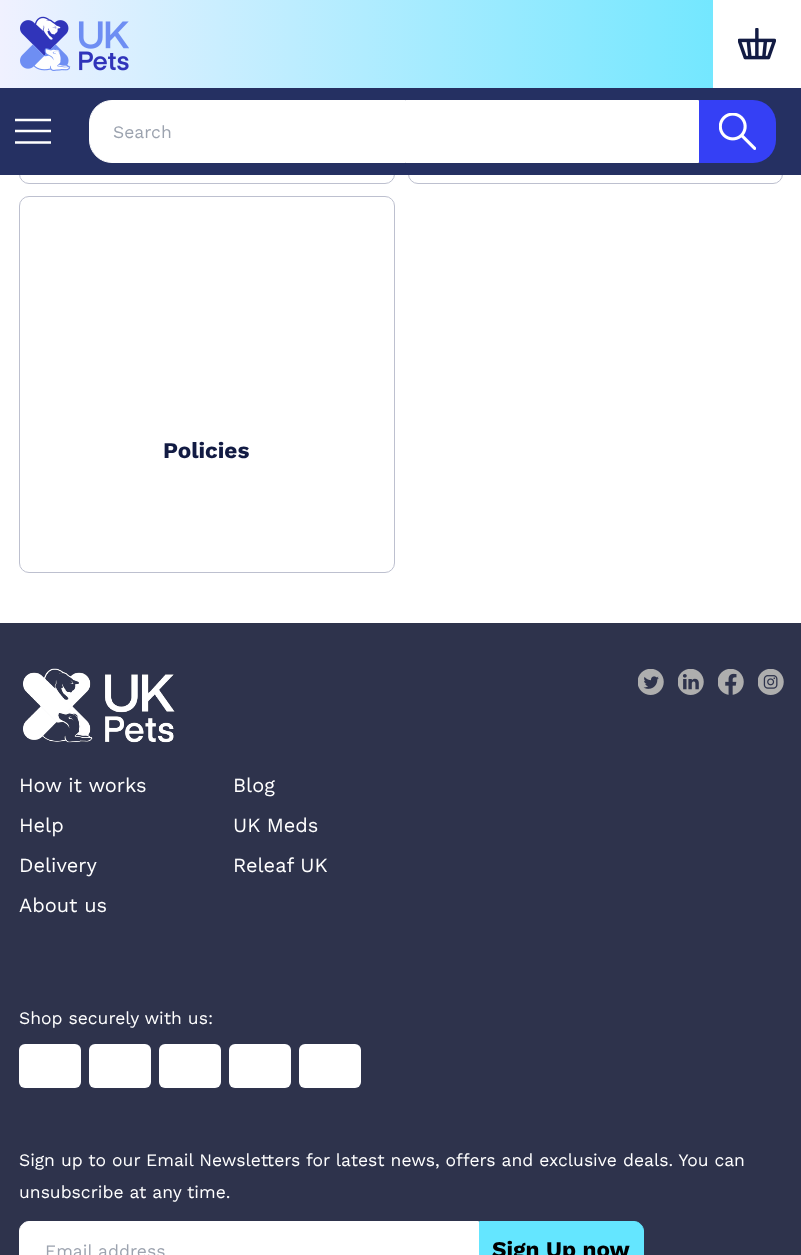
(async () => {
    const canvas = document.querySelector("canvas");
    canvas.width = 801;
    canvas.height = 1255;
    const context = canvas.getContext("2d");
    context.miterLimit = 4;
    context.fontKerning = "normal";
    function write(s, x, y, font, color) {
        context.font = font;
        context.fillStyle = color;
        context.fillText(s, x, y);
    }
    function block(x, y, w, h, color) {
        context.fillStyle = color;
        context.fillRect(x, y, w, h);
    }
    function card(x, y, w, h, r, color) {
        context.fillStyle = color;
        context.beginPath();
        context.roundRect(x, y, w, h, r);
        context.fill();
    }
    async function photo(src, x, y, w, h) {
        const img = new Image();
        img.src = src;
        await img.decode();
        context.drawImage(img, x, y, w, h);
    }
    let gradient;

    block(0, 0, 801, 1255, "rgb(255, 255, 255)");
    context.beginPath();
    context.roundRect(19.5, -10.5, 375, 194, 9.5);
    context.strokeStyle = "rgb(189, 192, 207)";
    context.stroke();
    context.beginPath();
    context.roundRect(408.5, -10.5, 374, 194, 9.5);
    context.stroke();
    gradient = context.createLinearGradient(0, 44, 801, 44);
    gradient.addColorStop(0, "rgb(240, 241, 255)");
    gradient.addColorStop(1, "rgb(100, 230, 255)");
    context.fillStyle = gradient;
    context.fillRect(0, 0, 713, 88);
    await photo("media/1.png", 20, 16, 109, 55);
    block(782, 0, 1, 88, "rgb(255, 255, 255)");
    await photo("media/2.png", 738, 28, 38, 32);
    block(0, 88, 801, 87, "rgb(37, 48, 98)");
    context.beginPath();
    context.moveTo(15, 120);
    context.lineTo(51, 120);
    context.moveTo(15, 131);
    context.lineTo(51, 131);
    context.moveTo(15, 142.5);
    context.lineTo(51, 142.5);
    context.strokeStyle = "rgb(255, 255, 255)";
    context.lineWidth = 2.5;
    context.stroke();
    context.fillStyle = "rgb(255, 255, 255)";
    context.beginPath();
    context.roundRect(89.5, 100.5, 609, 62, [22.5, 0, 0, 22.5]);
    context.fill();
    context.lineWidth = 1;
    context.stroke();
    write("Search", 113, 138, "17.5px Work Sans", "rgb(156, 163, 175)");
    context.fillStyle = "rgb(53, 64, 245)";
    context.beginPath();
    context.roundRect(699, 100, 77, 63, [0, 23, 23, 0]);
    context.fill();
    await photo("media/3.png", 719, 113, 37, 37);
    context.beginPath();
    context.roundRect(19.5, 196.5, 375, 376, 9.5);
    context.strokeStyle = "rgb(189, 192, 207)";
    context.stroke();
    write("Policies", 163, 458, "bold 22.5px Work Sans", "rgb(18, 27, 67)");
    block(0, 623, 801, 632, "rgb(46, 51, 76)");
    await photo("media/4.png", 23, 668, 152, 75);
    await photo("media/5.png", 638, 669, 26, 26);
    await photo("media/6.png", 678, 669, 26, 26);
    await photo("media/7.png", 718, 669, 26, 26);
    await photo("media/8.png", 758, 669, 26, 26);
    write("How it works", 19, 792, "20px Work Sans", "rgb(255, 255, 255)");
    write("Help", 19, 832, "20px Work Sans", "rgb(255, 255, 255)");
    write("Delivery", 19, 872, "20px Work Sans", "rgb(255, 255, 255)");
    write("About us", 19, 912, "20px Work Sans", "rgb(255, 255, 255)");
    write("Blog", 233, 792, "20px Work Sans", "rgb(255, 255, 255)");
    write("UK Meds", 233, 832, "20px Work Sans", "rgb(255, 255, 255)");
    write("Releaf UK", 233, 872, "20px Work Sans", "rgb(255, 255, 255)");
    write("Shop securely with us:", 19, 1024, "17.5px Work Sans", "rgb(255, 255, 255)");
    card(19, 1044, 62, 44, 6, "rgb(255, 255, 255)");
    card(89, 1044, 62, 44, 6, "rgb(255, 255, 255)");
    card(159, 1044, 62, 44, 6, "rgb(255, 255, 255)");
    card(229, 1044, 62, 44, 6, "rgb(255, 255, 255)");
    card(299, 1044, 62, 44, 6, "rgb(255, 255, 255)");
    write("Sign up to our Email Newsletters for latest news, offers and exclusive deals. You can", 19, 1166, "17.5px Work Sans", "rgb(255, 255, 255)");
    write("unsubscribe at any time.", 19, 1198, "17.5px Work Sans", "rgb(255, 255, 255)");
    context.beginPath();
    context.moveTo(29, 1221.5);
    context.lineTo(478.5, 1221.5);
    context.lineTo(478.5, 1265.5);
    context.lineTo(29, 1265.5);
    context.bezierCurveTo(24, 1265.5, 19.5, 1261, 19.5, 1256);
    context.lineTo(19.5, 1231);
    context.bezierCurveTo(19.5, 1226, 24, 1221.5, 29, 1221.5);
    context.closePath();
    context.fill();
    context.strokeStyle = "rgb(255, 255, 255)";
    context.stroke();
    write("Email address", 45, 1257, "17.5px Work Sans", "rgb(156, 163, 175)");
    context.fillStyle = "rgb(100, 230, 255)";
    context.beginPath();
    context.moveTo(479.5, 1221.5);
    context.lineTo(634, 1221.5);
    context.bezierCurveTo(639, 1221.5, 643.5, 1226, 643.5, 1231);
    context.lineTo(643.5, 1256);
    context.bezierCurveTo(643.5, 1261, 639, 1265.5, 634, 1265.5);
    context.lineTo(479.5, 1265.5);
    context.closePath();
    context.fill();
    context.strokeStyle = "rgb(100, 230, 255)";
    context.stroke();
    write("Sign Up now", 492, 1257, "bold 22.5px Work Sans", "rgb(0, 0, 0)");
})();
